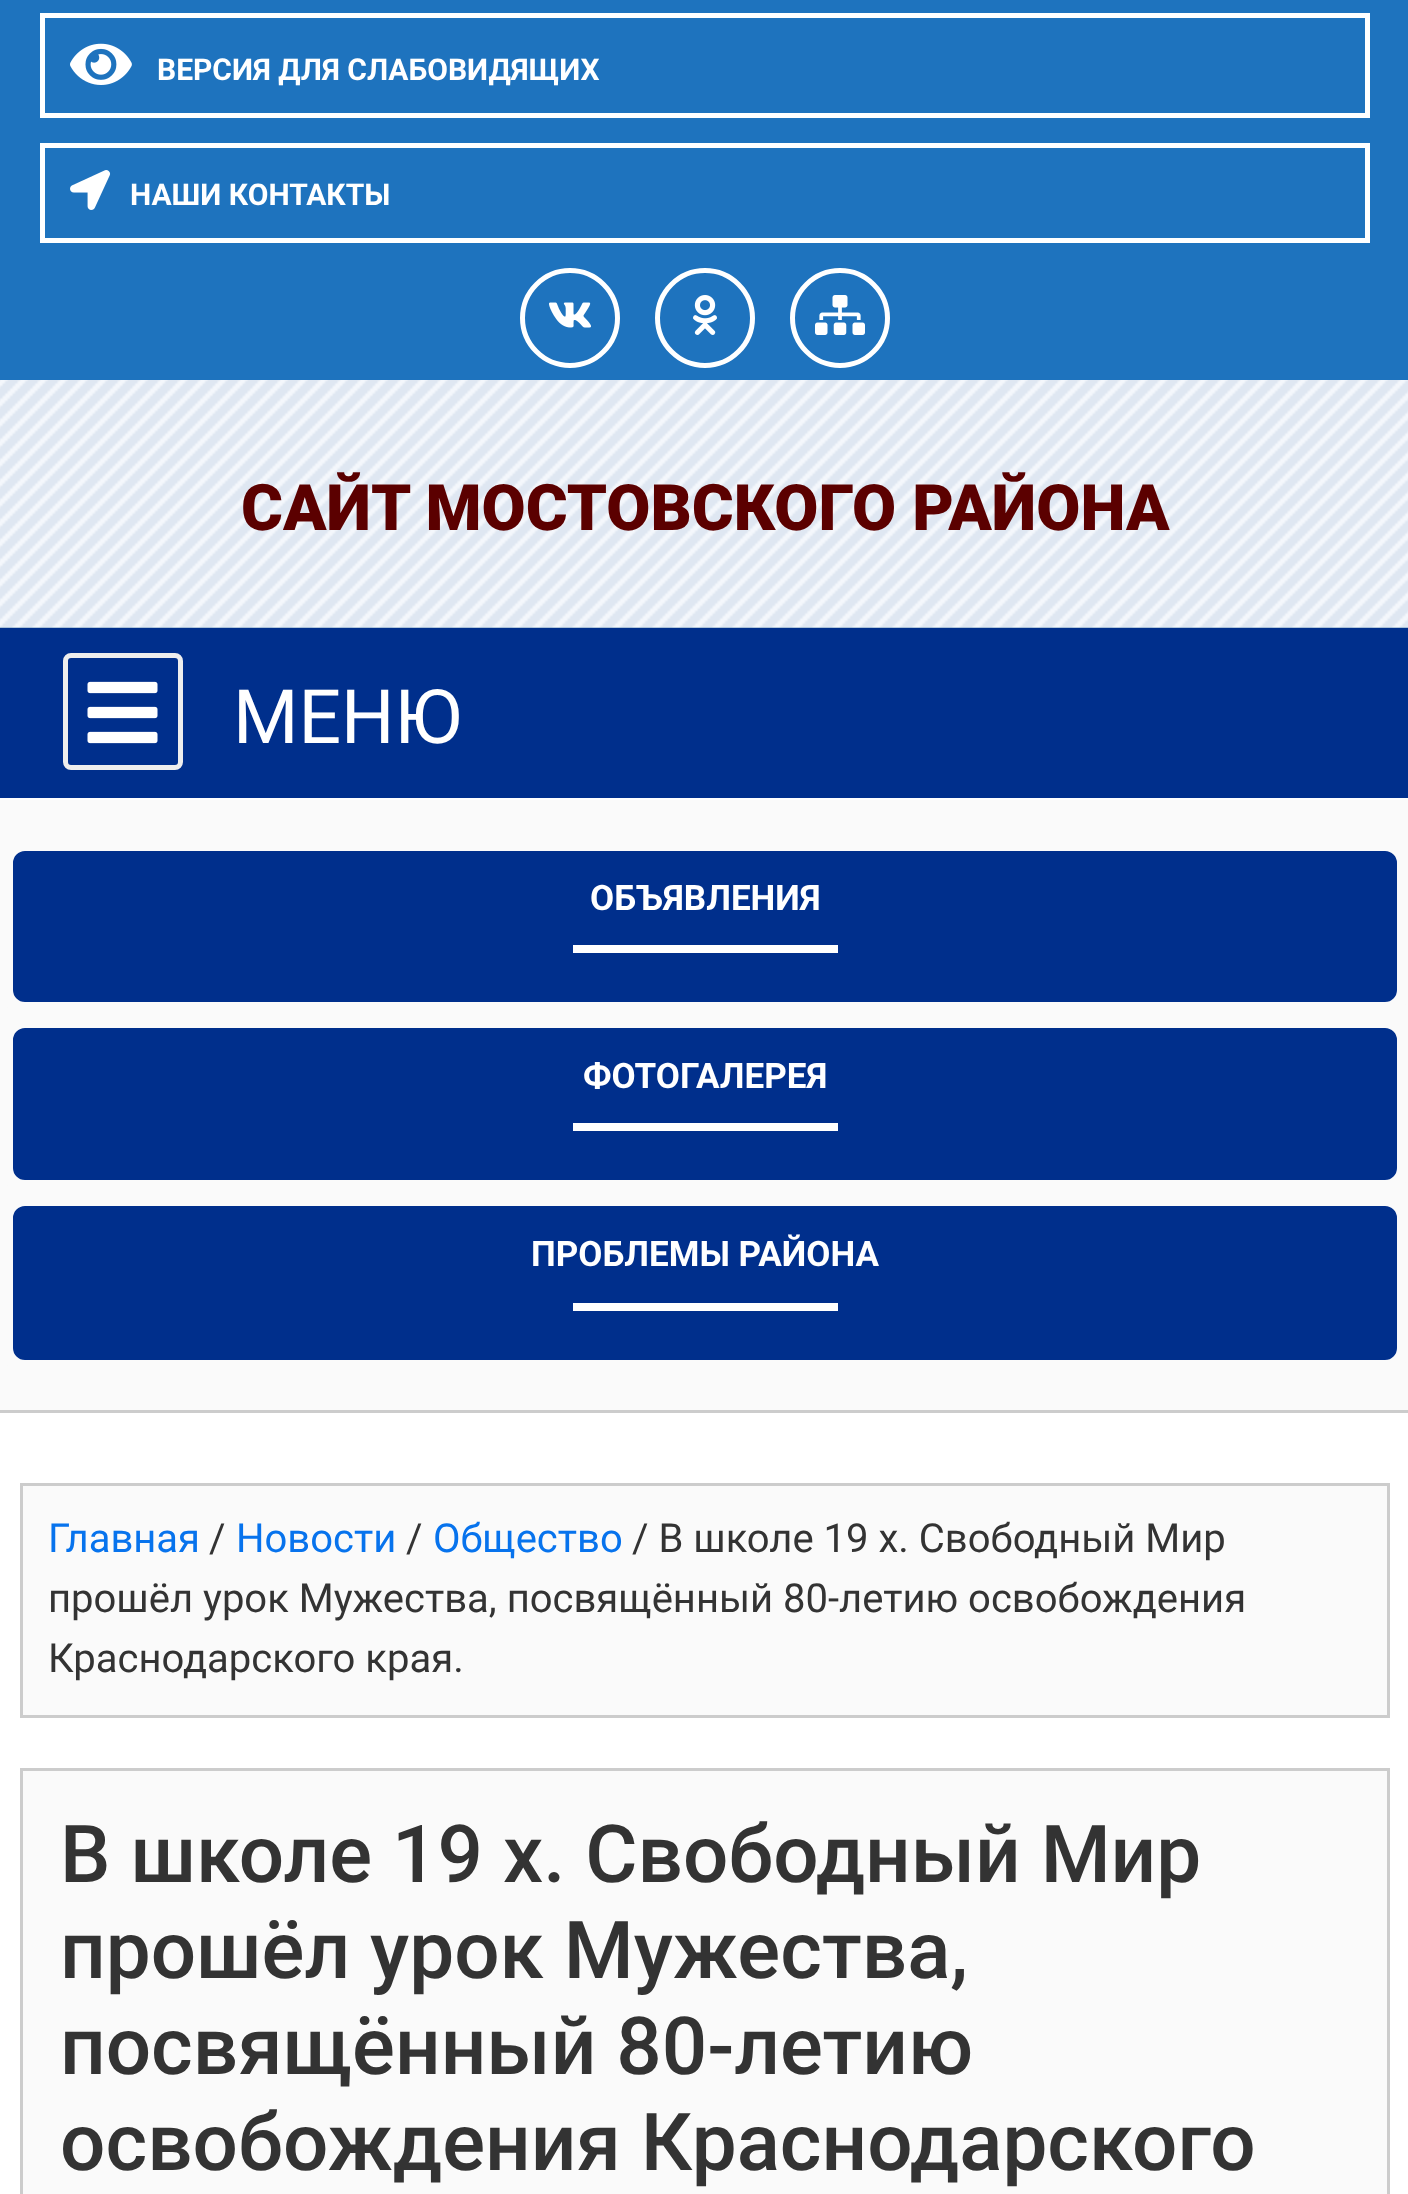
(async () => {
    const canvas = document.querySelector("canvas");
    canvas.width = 1408;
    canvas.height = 2194;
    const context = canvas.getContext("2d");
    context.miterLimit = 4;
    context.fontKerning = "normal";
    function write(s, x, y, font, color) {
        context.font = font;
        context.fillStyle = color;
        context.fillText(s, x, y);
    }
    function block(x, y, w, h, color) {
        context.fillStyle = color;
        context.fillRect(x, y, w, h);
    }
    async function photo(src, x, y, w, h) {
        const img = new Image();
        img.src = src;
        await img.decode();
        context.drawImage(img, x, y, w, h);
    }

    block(0, 0, 1408, 2194, "rgb(255, 255, 255)");
    block(0, 0, 1408, 380, "rgb(30, 115, 190)");
    context.strokeStyle = "rgb(255, 255, 255)";
    context.lineWidth = 5;
    context.strokeRect(42.5, 15.5, 1325, 100);
    await photo("media/1.png", 70, 43, 62, 42);
    write("ВЕРСИЯ ДЛЯ СЛАБОВИДЯЩИХ", 157, 80, "bold 30px Roboto", "rgb(255, 255, 255)");
    context.strokeRect(42.5, 145.5, 1325, 95);
    await photo("media/2.png", 70, 170, 41, 40);
    write("НАШИ КОНТАКТЫ", 130, 205, "bold 30px Roboto", "rgb(255, 255, 255)");
    context.beginPath();
    context.arc(570, 318, 47.5, 0, Math.PI * 2);
    context.stroke();
    await photo("media/3.png", 549, 302, 42, 26);
    context.beginPath();
    context.arc(705, 318, 47.5, 0, Math.PI * 2);
    context.stroke();
    await photo("media/4.png", 693, 295, 24, 40);
    context.beginPath();
    context.arc(840, 318, 47.5, 0, Math.PI * 2);
    context.stroke();
    await photo("media/5.png", 815, 295, 50, 40);
    block(0, 627, 1408, 1, "rgb(112, 153, 191)");
    await photo("media/6.png", 0, 380, 1408, 248);
    write("САЙТ МОСТОВСКОГО РАЙОНА", 241, 530, "900 64px Roboto", "rgb(91, 0, 0)");
    block(0, 628, 1408, 170, "rgb(0, 47, 140)");
    context.beginPath();
    context.roundRect(65.5, 655.5, 115, 112, 5.5);
    context.strokeStyle = "rgb(238, 238, 238)";
    context.stroke();
    await photo("media/7.png", 87, 681, 71, 63);
    write("МЕНЮ", 233, 743, "75px Roboto", "rgb(255, 255, 255)");
    block(0, 800, 1408, 610, "rgb(250, 250, 250)");
    block(0, 1410, 1408, 3, "rgb(204, 204, 204)");
    context.fillStyle = "rgb(0, 47, 140)";
    context.beginPath();
    context.roundRect(6.5, 844.5, 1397, 164, 18.5);
    context.fill();
    context.strokeStyle = "rgb(250, 250, 250)";
    context.lineWidth = 13;
    context.stroke();
    write("ОБЪЯВЛЕНИЯ", 590, 910, "bold 35px Roboto", "rgb(255, 255, 255)");
    block(573, 945, 265, 8, "rgb(255, 255, 255)");
    context.fillStyle = "rgb(0, 47, 140)";
    context.beginPath();
    context.roundRect(6.5, 1021.5, 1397, 165, 18.5);
    context.fill();
    context.stroke();
    write("ФОТОГАЛЕРЕЯ", 583, 1088, "bold 35px Roboto", "rgb(255, 255, 255)");
    block(573, 1123, 265, 8, "rgb(255, 255, 255)");
    context.fillStyle = "rgb(0, 47, 140)";
    context.beginPath();
    context.roundRect(6.5, 1199.5, 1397, 167, 18.5);
    context.fill();
    context.stroke();
    write("ПРОБЛЕМЫ РАЙОНА", 531, 1266, "bold 35px Roboto", "rgb(255, 255, 255)");
    block(573, 1303, 265, 8, "rgb(255, 255, 255)");
    context.fillStyle = "rgb(250, 250, 250)";
    context.beginPath();
    context.rect(21.5, 1484.5, 1367, 232);
    context.fill();
    context.strokeStyle = "rgb(204, 204, 204)";
    context.lineWidth = 3;
    context.stroke();
    write("Главная", 48, 1552, "40px Roboto", "rgb(7, 115, 237)");
    write("/", 209, 1552, "40px Roboto", "rgb(51, 51, 51)");
    write("Новости", 236, 1552, "40px Roboto", "rgb(7, 115, 237)");
    write("/", 406, 1552, "40px Roboto", "rgb(51, 51, 51)");
    write("Общество", 433, 1552, "40px Roboto", "rgb(7, 115, 237)");
    write("/ В школе 19 х. Свободный Мир", 632, 1552, "40px Roboto", "rgb(51, 51, 51)");
    write("прошёл урок Мужества, посвящённый 80-летию освобождения", 48, 1612, "40px Roboto", "rgb(51, 51, 51)");
    write("Краснодарского края.", 48, 1672, "40px Roboto", "rgb(51, 51, 51)");
    context.fillStyle = "rgb(250, 250, 250)";
    context.beginPath();
    context.rect(21.5, 1769.5, 1367, 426);
    context.fill();
    context.stroke();
    write("В школе 19 х. Свободный Мир", 60, 1882, "500 80px Roboto", "rgb(51, 51, 51)");
    write("прошёл урок Мужества,", 60, 1978, "500 80px Roboto", "rgb(51, 51, 51)");
    write("посвящённый 80-летию", 60, 2074, "500 80px Roboto", "rgb(51, 51, 51)");
    write("освобождения Краснодарского", 60, 2170, "500 80px Roboto", "rgb(51, 51, 51)");
})();
